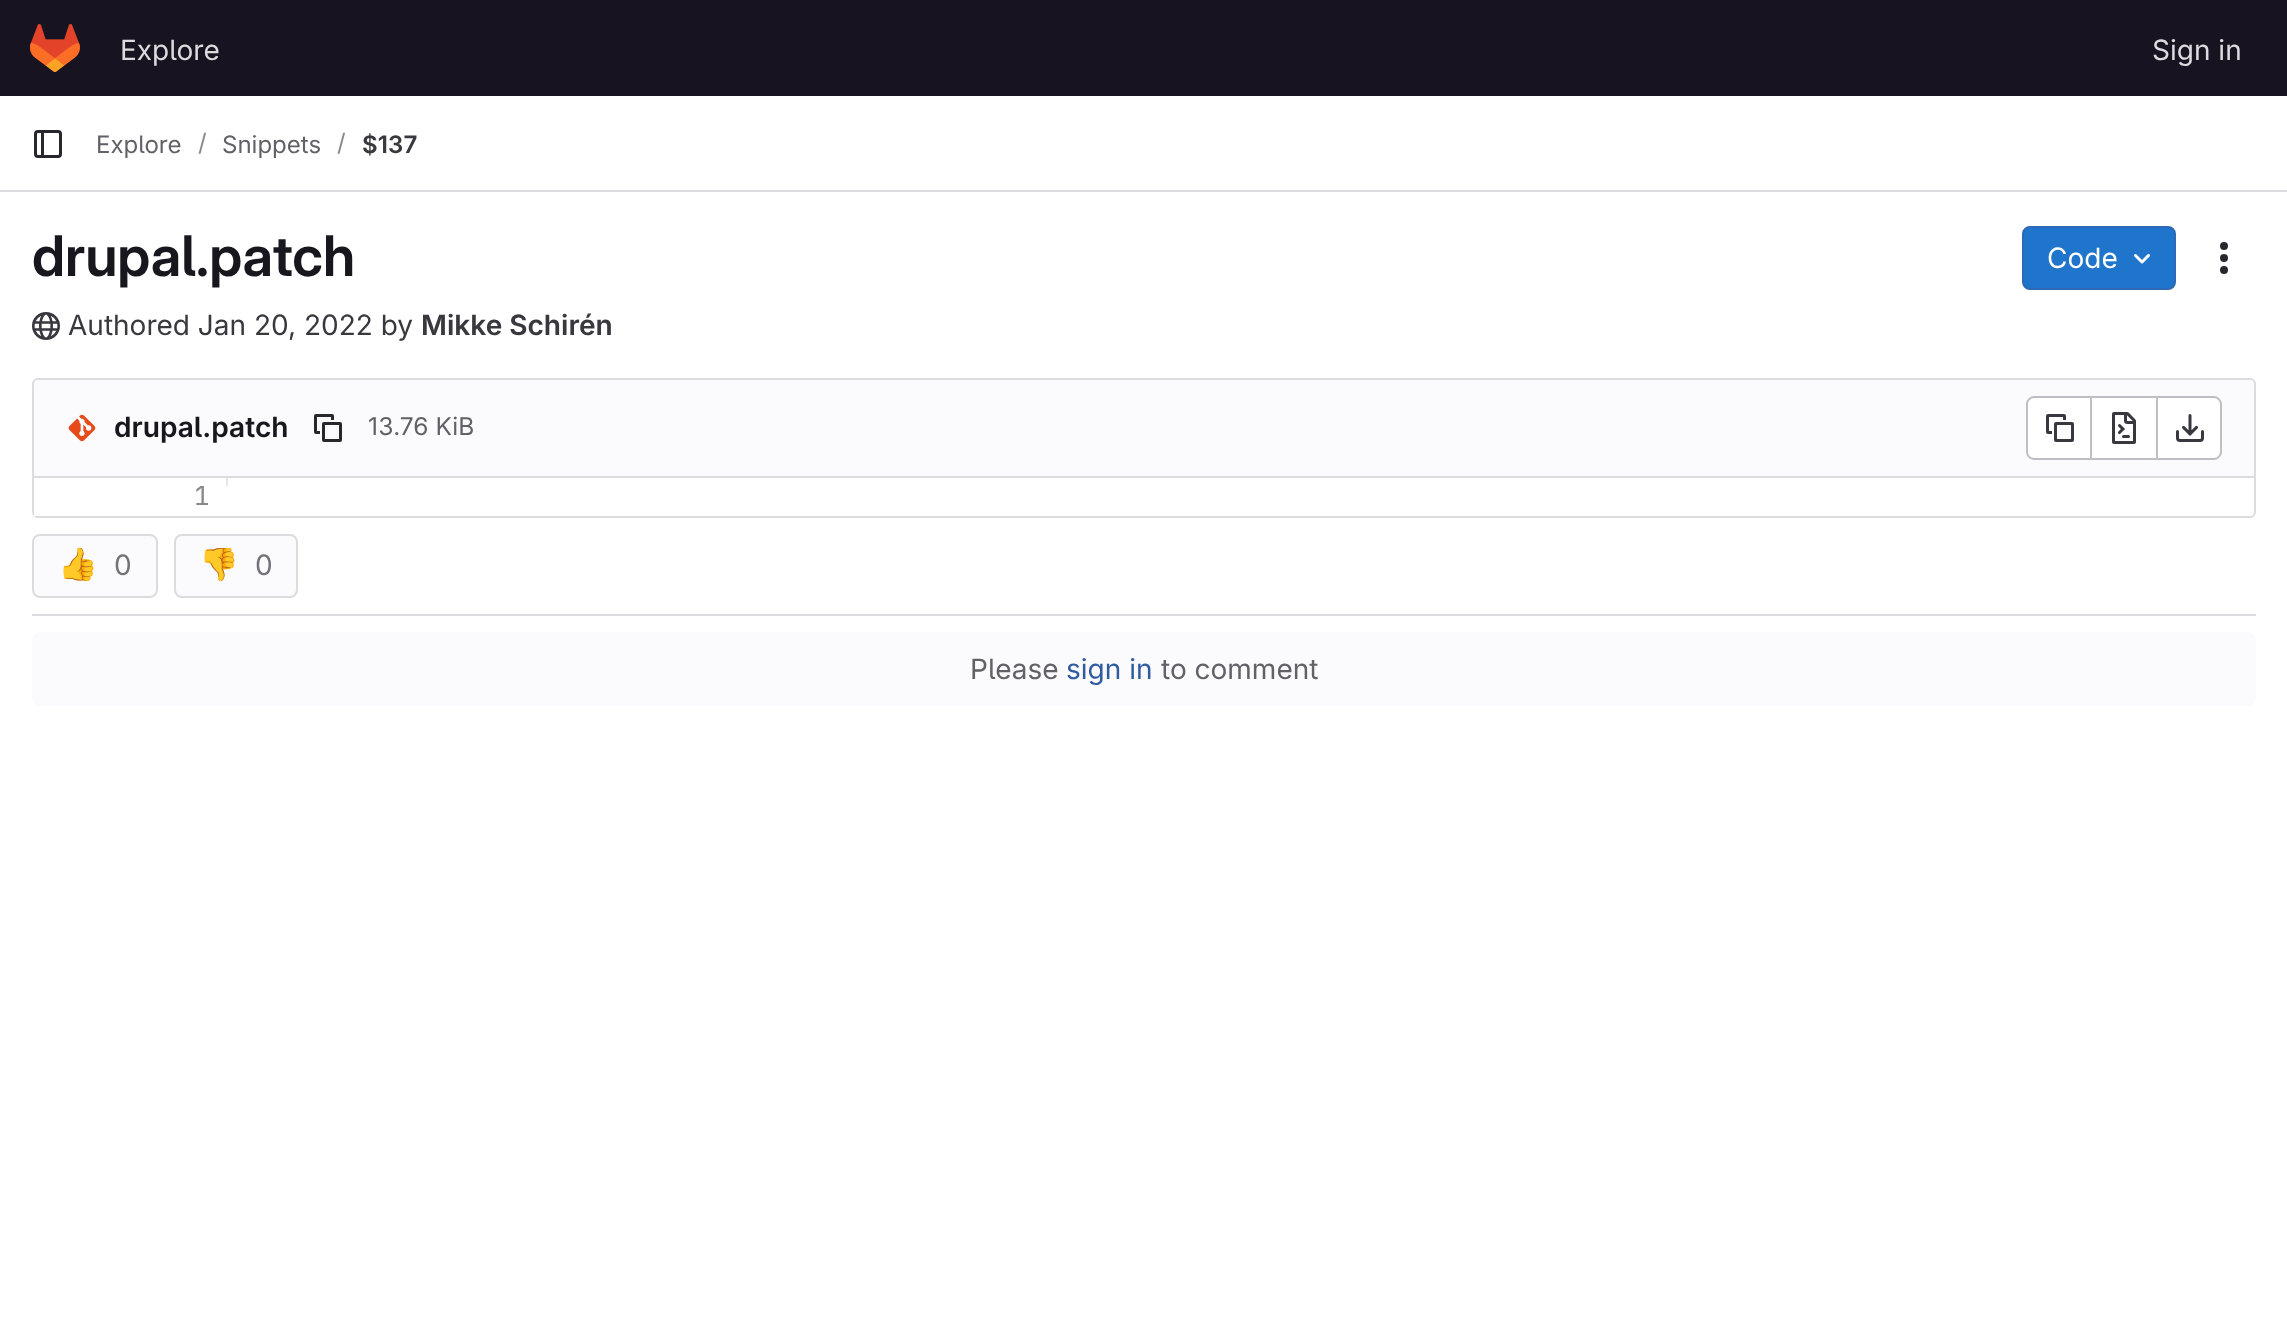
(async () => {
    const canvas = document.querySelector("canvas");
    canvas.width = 2287;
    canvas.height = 1321;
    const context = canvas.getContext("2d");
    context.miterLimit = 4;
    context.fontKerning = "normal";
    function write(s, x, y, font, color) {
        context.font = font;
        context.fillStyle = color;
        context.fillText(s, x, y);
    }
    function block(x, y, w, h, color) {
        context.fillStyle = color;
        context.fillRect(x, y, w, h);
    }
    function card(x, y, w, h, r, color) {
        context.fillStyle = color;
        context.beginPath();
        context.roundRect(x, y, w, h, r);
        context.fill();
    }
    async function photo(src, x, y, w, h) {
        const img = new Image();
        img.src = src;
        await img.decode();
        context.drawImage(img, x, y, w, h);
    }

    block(0, 0, 2287, 1321, "rgb(255, 255, 255)");
    block(0, 0, 2287, 96, "rgb(23, 19, 33)");
    await photo("media/1.png", 30, 24, 50, 48);
    write("Explore", 120, 60, "28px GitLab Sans", "rgb(220, 220, 222)");
    write("Sign in", 2152, 60, "28px GitLab Sans", "rgb(220, 220, 222)");
    block(0, 190, 2287, 2, "rgb(220, 220, 222)");
    await photo("media/2.png", 34, 130, 28, 28);
    write("Explore", 96, 153, "24px GitLab Sans", "rgb(98, 97, 104)");
    write("/", 198, 151, "24px GitLab Sans", "rgb(137, 136, 141)");
    write("Snippets", 222, 153, "24px GitLab Sans", "rgb(98, 97, 104)");
    write("/", 337, 151, "24px GitLab Sans", "rgb(137, 136, 141)");
    write("$137", 362, 153, "600 24px 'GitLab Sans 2'", "rgb(58, 56, 63)");
    write("drupal.patch", 32, 276, "600 56px GitLab Sans", "rgb(24, 23, 29)");
    context.fillStyle = "rgb(31, 117, 203)";
    context.beginPath();
    context.roundRect(2023, 227, 152, 62, 7);
    context.fill();
    context.strokeStyle = "rgb(47, 104, 180)";
    context.lineWidth = 2;
    context.stroke();
    write("Code", 2047, 268, "28px GitLab Sans", "rgb(255, 255, 255)");
    await photo("media/3.png", 2133, 253, 18, 11);
    await photo("media/4.png", 2220, 242, 8, 32);
    await photo("media/5.png", 32, 312, 28, 28);
    write("Authored Jan 20, 2022 by", 68, 335, "28px GitLab Sans", "rgb(58, 56, 63)");
    write("Mikke Schirén", 421, 335, "600 28px 'GitLab Sans 2'", "rgb(58, 56, 63)");
    context.beginPath();
    context.roundRect(33, 379, 2222, 138, 5);
    context.strokeStyle = "rgb(220, 220, 222)";
    context.stroke();
    context.fillStyle = "rgb(251, 250, 253)";
    context.beginPath();
    context.roundRect(34, 380, 2220, 98, [6, 6, 0, 0]);
    context.fill();
    block(34, 476, 2220, 2, "rgb(220, 220, 222)");
    await photo("media/6.png", 68, 414, 28, 28);
    write("drupal.patch", 114, 437, "600 28px 'GitLab Sans 2'", "rgb(24, 23, 29)");
    await photo("media/7.png", 314, 414, 28, 28);
    write("13.76 KiB", 368, 435, "24.5px GitLab Sans", "rgb(98, 97, 104)");
    context.fillStyle = "rgb(255, 255, 255)";
    context.beginPath();
    context.roundRect(2028, 398, 62, 60, [6, 0, 0, 6]);
    context.fill();
    context.fillStyle = "rgb(191, 191, 195)";
    context.beginPath();
    context.moveTo(2034, 396);
    context.lineTo(2090, 396);
    context.lineTo(2090, 460);
    context.lineTo(2034, 460);
    context.bezierCurveTo(2030, 460, 2026, 456, 2026, 452);
    context.lineTo(2026, 404);
    context.bezierCurveTo(2026, 400, 2030, 396, 2034, 396);
    context.closePath();
    context.moveTo(2034, 398);
    context.lineTo(2090, 398);
    context.lineTo(2090, 458);
    context.lineTo(2034, 458);
    context.bezierCurveTo(2031, 458, 2028, 455, 2028, 452);
    context.lineTo(2028, 404);
    context.bezierCurveTo(2028, 401, 2031, 398, 2034, 398);
    context.closePath();
    context.fill("evenodd");
    await photo("media/8.png", 2046, 414, 28, 28);
    block(2092, 398, 64, 60, "rgb(255, 255, 255)");
    block(2092, 396, 64, 2, "rgb(191, 191, 195)");
    block(2092, 458, 64, 2, "rgb(191, 191, 195)");
    block(2090, 396, 2, 64, "rgb(191, 191, 195)");
    await photo("media/9.png", 2112, 412, 24, 32);
    context.fillStyle = "rgb(255, 255, 255)";
    context.beginPath();
    context.roundRect(2158, 398, 62, 60, [0, 6, 6, 0]);
    context.fill();
    context.fillStyle = "rgb(191, 191, 195)";
    context.beginPath();
    context.moveTo(2158, 396);
    context.lineTo(2214, 396);
    context.bezierCurveTo(2218, 396, 2222, 400, 2222, 404);
    context.lineTo(2222, 452);
    context.bezierCurveTo(2222, 456, 2218, 460, 2214, 460);
    context.lineTo(2158, 460);
    context.closePath();
    context.moveTo(2158, 398);
    context.lineTo(2214, 398);
    context.bezierCurveTo(2217, 398, 2220, 401, 2220, 404);
    context.lineTo(2220, 452);
    context.bezierCurveTo(2220, 455, 2217, 458, 2214, 458);
    context.lineTo(2158, 458);
    context.closePath();
    context.fill("evenodd");
    block(2156, 396, 2, 64, "rgb(191, 191, 195)");
    await photo("media/10.png", 2176, 414, 28, 28);
    block(226, 478, 2, 8, "rgb(230, 230, 230)");
    block(34, 513, 3, 3, "rgb(255, 255, 255)");
    write("1", 194, 505, "26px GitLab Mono", "rgb(137, 136, 141)");
    block(32, 614, 2224, 2, "rgb(220, 220, 222)");
    context.fillStyle = "rgb(251, 250, 253)";
    context.beginPath();
    context.roundRect(33, 535, 124, 62, 7);
    context.fill();
    context.stroke();
    context.save();
    context.beginPath();
    context.rect(58, 548, 74, 36);
    context.clip();
    write("👍", 58, 575, "32px Noto Color Emoji", "rgb(115, 114, 120)");
    context.restore();
    write("0", 114, 575, "28px GitLab Sans", "rgb(115, 114, 120)");
    context.fillStyle = "rgb(251, 250, 253)";
    context.beginPath();
    context.roundRect(175, 535, 122, 62, 7);
    context.fill();
    context.stroke();
    context.save();
    context.beginPath();
    context.rect(200, 548, 72, 36);
    context.clip();
    write("👎", 199, 575, "32px Noto Color Emoji", "rgb(115, 114, 120)");
    context.restore();
    write("0", 255, 575, "28px GitLab Sans", "rgb(115, 114, 120)");
    card(32, 632, 2224, 74, 8, "rgb(251, 250, 253)");
    write("Please", 970, 679, "28px GitLab Sans", "rgb(98, 97, 104)");
    write("sign in", 1066, 679, "28px GitLab Sans", "rgb(47, 92, 160)");
    write("to comment", 1161, 679, "28px GitLab Sans", "rgb(98, 97, 104)");
})();
